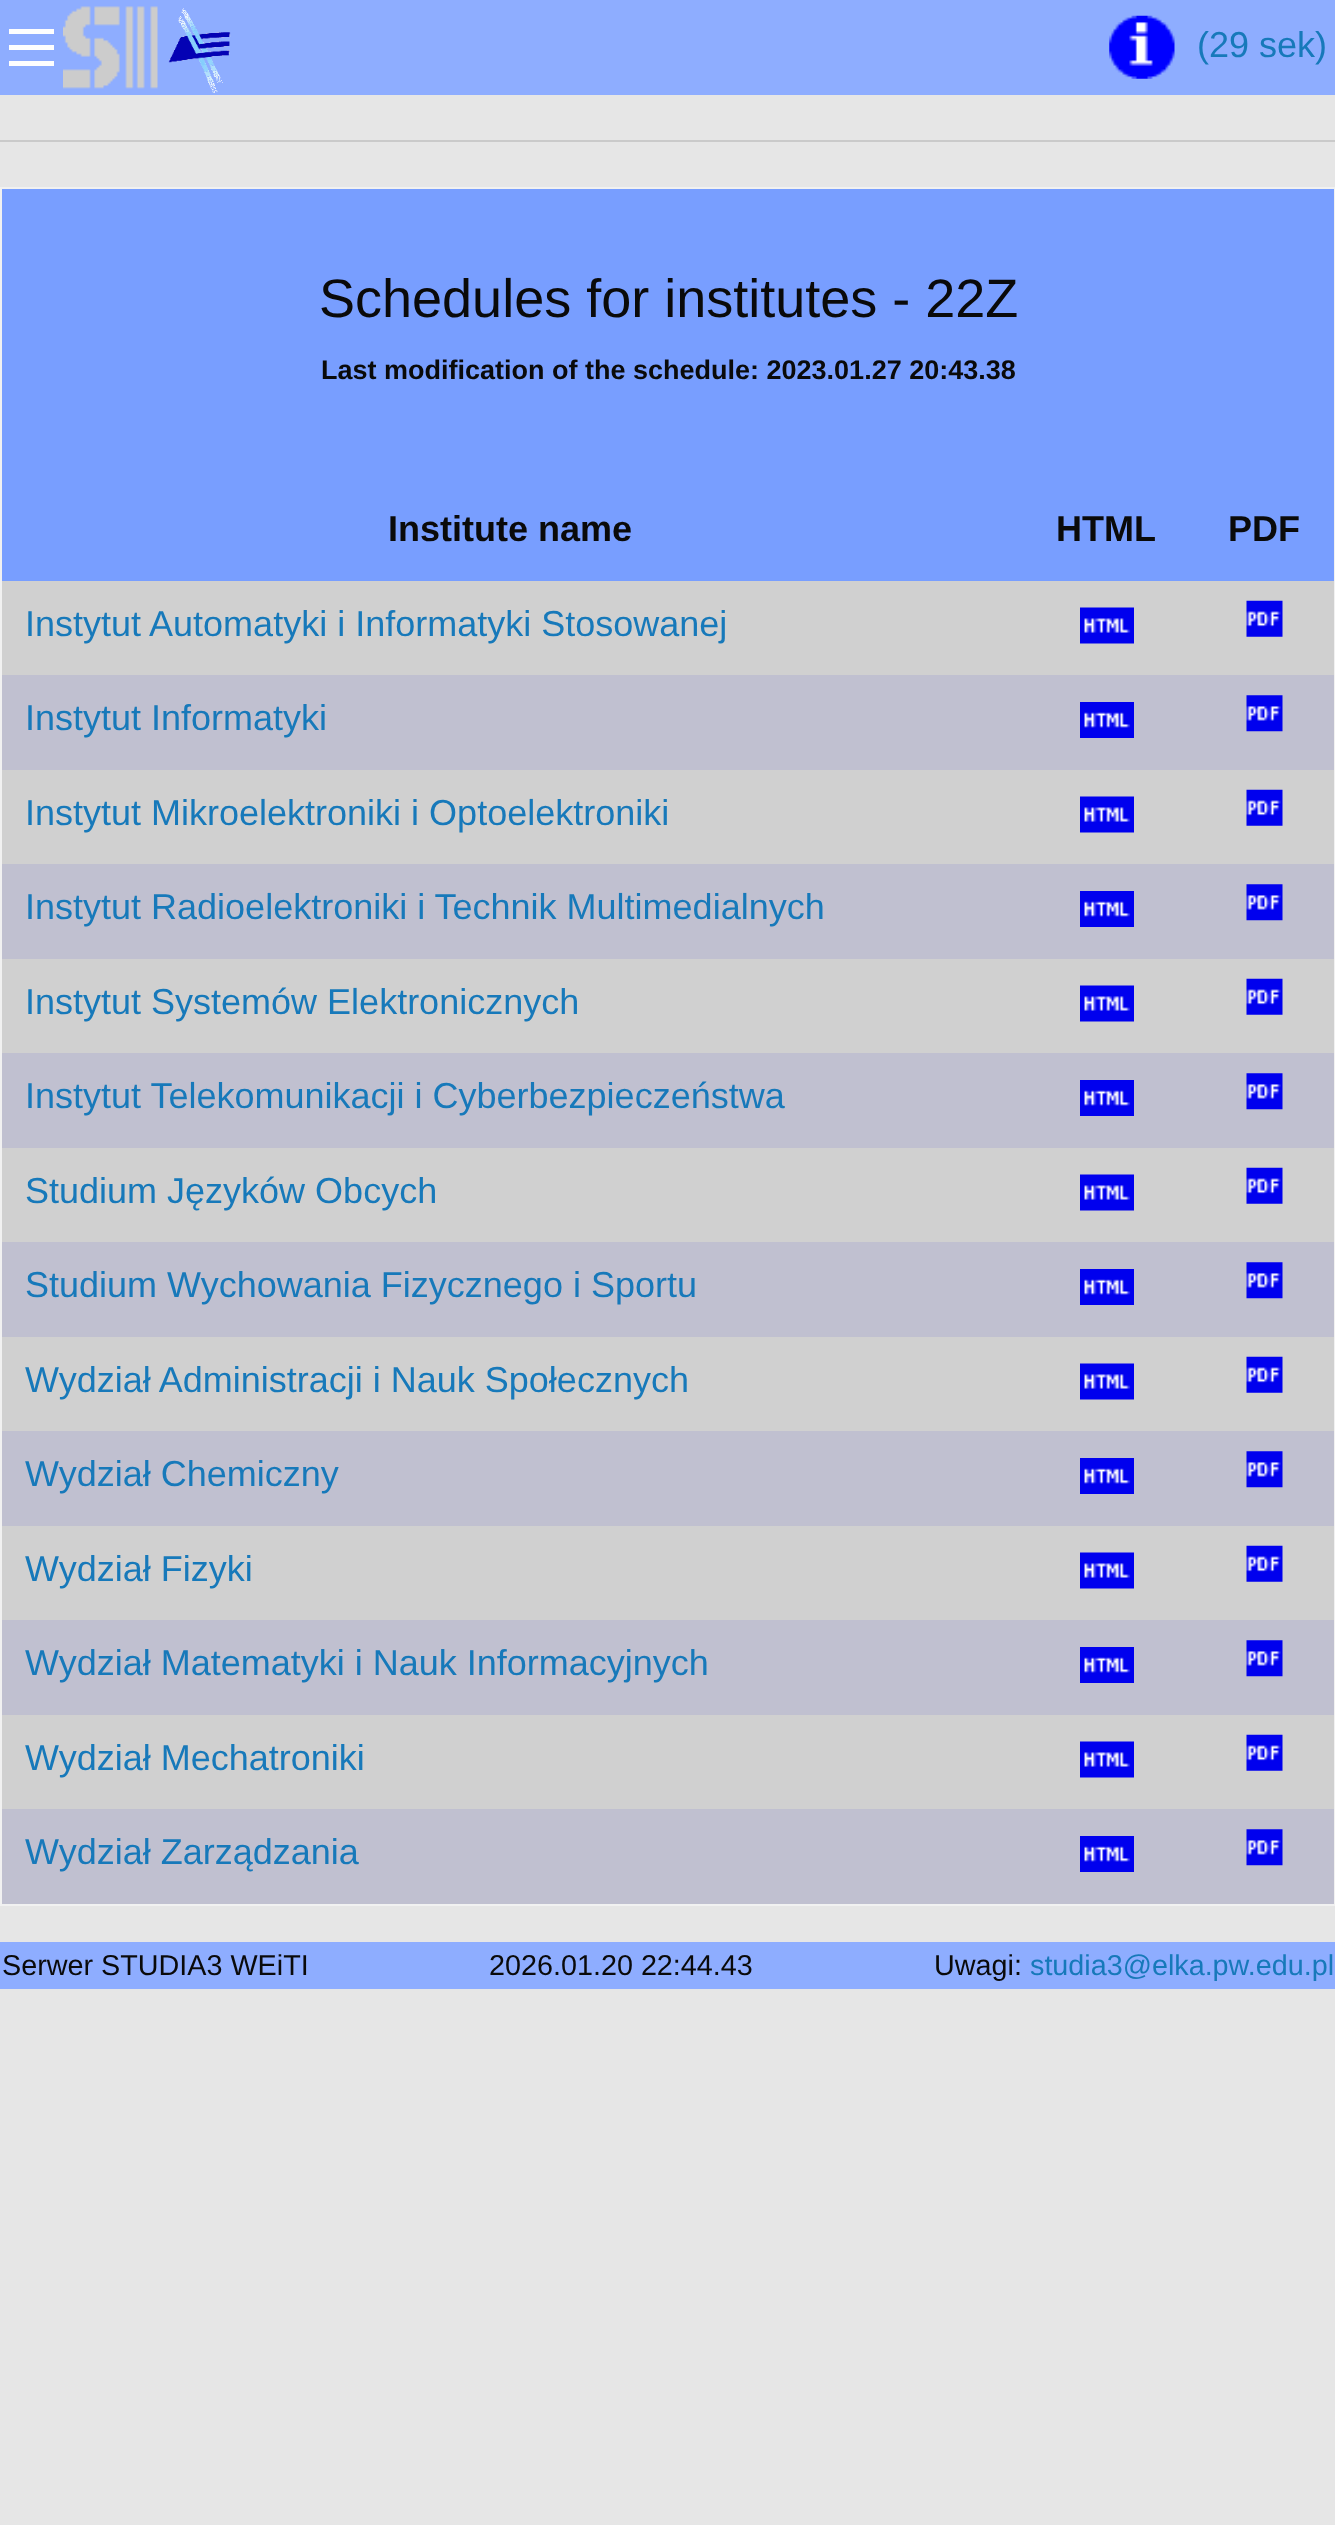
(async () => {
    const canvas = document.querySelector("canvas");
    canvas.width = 1335;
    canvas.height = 2525;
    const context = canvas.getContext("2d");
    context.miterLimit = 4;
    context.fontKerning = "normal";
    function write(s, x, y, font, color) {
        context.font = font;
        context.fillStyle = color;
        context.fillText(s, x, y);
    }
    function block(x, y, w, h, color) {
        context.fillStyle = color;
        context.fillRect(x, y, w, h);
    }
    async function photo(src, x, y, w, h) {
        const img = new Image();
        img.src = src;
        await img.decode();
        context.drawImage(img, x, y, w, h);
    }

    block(0, 0, 1335, 2525, "rgb(230, 230, 230)");
    block(0, 0, 1335, 95, "rgb(142, 173, 255)");
    block(9, 61, 45, 5, "rgb(254, 254, 254)");
    block(9, 45, 45, 5, "rgb(254, 254, 254)");
    block(9, 29, 45, 5, "rgb(254, 254, 254)");
    await photo("media/1.png", 63, 6, 95, 83);
    await photo("media/2.png", 168, 8, 63, 85);
    await photo("media/3.png", 1109, 15, 66, 64);
    write("(29 sek)", 1197, 57, "36px Liberation Sans", "rgb(23, 121, 186)");
    block(0, 140, 1335, 2, "rgb(202, 202, 202)");
    block(0, 187, 1335, 2, "rgb(241, 241, 241)");
    block(1334, 187, 1, 1719, "rgb(241, 241, 241)");
    block(0, 1904, 1335, 2, "rgb(241, 241, 241)");
    block(0, 187, 2, 1719, "rgb(241, 241, 241)");
    block(2, 189, 1332, 243, "rgb(120, 158, 255)");
    write("Schedules for institutes - 22Z", 319, 317, "54px Liberation Sans", "rgb(10, 10, 10)");
    write("Last modification of the schedule: 2023.01.27 20:43.38", 321, 379, "bold 27px Liberation Sans", "rgb(10, 10, 10)");
    block(2, 432, 1332, 149, "rgb(120, 158, 255)");
    write("Institute name", 388, 541, "bold 36px Liberation Sans", "rgb(10, 10, 10)");
    write("HTML", 1056, 541, "bold 36px Liberation Sans", "rgb(10, 10, 10)");
    write("PDF", 1228, 541, "bold 36px Liberation Sans", "rgb(10, 10, 10)");
    block(2, 581, 1332, 94, "rgb(208, 208, 208)");
    write("Instytut Automatyki i Informatyki Stosowanej", 25, 636, "36px Liberation Sans", "rgb(23, 121, 186)");
    await photo("media/4.png", 1080, 607, 54, 37);
    await photo("media/5.png", 1246, 600, 37, 37);
    block(2, 675, 1332, 95, "rgb(192, 192, 208)");
    write("Instytut Informatyki", 25, 730, "36px Liberation Sans", "rgb(23, 121, 186)");
    await photo("media/6.png", 1080, 702, 54, 36);
    await photo("media/7.png", 1246, 695, 37, 37);
    block(2, 770, 1332, 94, "rgb(208, 208, 208)");
    write("Instytut Mikroelektroniki i Optoelektroniki", 25, 825, "36px Liberation Sans", "rgb(23, 121, 186)");
    await photo("media/4.png", 1080, 796, 54, 37);
    await photo("media/5.png", 1246, 789, 37, 37);
    block(2, 864, 1332, 95, "rgb(192, 192, 208)");
    write("Instytut Radioelektroniki i Technik Multimedialnych", 25, 919, "36px Liberation Sans", "rgb(23, 121, 186)");
    await photo("media/6.png", 1080, 891, 54, 36);
    await photo("media/7.png", 1246, 884, 37, 37);
    block(2, 959, 1332, 94, "rgb(208, 208, 208)");
    write("Instytut Systemów Elektronicznych", 25, 1014, "36px Liberation Sans", "rgb(23, 121, 186)");
    await photo("media/4.png", 1080, 985, 54, 37);
    await photo("media/5.png", 1246, 978, 37, 37);
    block(2, 1053, 1332, 95, "rgb(192, 192, 208)");
    write("Instytut Telekomunikacji i Cyberbezpieczeństwa", 25, 1108, "36px Liberation Sans", "rgb(23, 121, 186)");
    await photo("media/6.png", 1080, 1080, 54, 36);
    await photo("media/7.png", 1246, 1073, 37, 37);
    block(2, 1148, 1332, 94, "rgb(208, 208, 208)");
    write("Studium Języków Obcych", 25, 1203, "36px Liberation Sans", "rgb(23, 121, 186)");
    await photo("media/4.png", 1080, 1174, 54, 37);
    await photo("media/5.png", 1246, 1167, 37, 37);
    block(2, 1242, 1332, 95, "rgb(192, 192, 208)");
    write("Studium Wychowania Fizycznego i Sportu", 25, 1297, "36px Liberation Sans", "rgb(23, 121, 186)");
    await photo("media/6.png", 1080, 1269, 54, 36);
    await photo("media/7.png", 1246, 1262, 37, 37);
    block(2, 1337, 1332, 94, "rgb(208, 208, 208)");
    write("Wydział Administracji i Nauk Społecznych", 25, 1392, "36px Liberation Sans", "rgb(23, 121, 186)");
    await photo("media/4.png", 1080, 1363, 54, 37);
    await photo("media/5.png", 1246, 1356, 37, 37);
    block(2, 1431, 1332, 95, "rgb(192, 192, 208)");
    write("Wydział Chemiczny", 25, 1486, "36px Liberation Sans", "rgb(23, 121, 186)");
    await photo("media/6.png", 1080, 1458, 54, 36);
    await photo("media/7.png", 1246, 1451, 37, 37);
    block(2, 1526, 1332, 94, "rgb(208, 208, 208)");
    write("Wydział Fizyki", 25, 1581, "36px Liberation Sans", "rgb(23, 121, 186)");
    await photo("media/8.png", 1080, 1552, 54, 37);
    await photo("media/9.png", 1246, 1545, 37, 37);
    block(2, 1620, 1332, 95, "rgb(192, 192, 208)");
    write("Wydział Matematyki i Nauk Informacyjnych", 25, 1675, "36px Liberation Sans", "rgb(23, 121, 186)");
    await photo("media/10.png", 1080, 1647, 54, 36);
    await photo("media/7.png", 1246, 1640, 37, 37);
    block(2, 1715, 1332, 94, "rgb(208, 208, 208)");
    write("Wydział Mechatroniki", 25, 1770, "36px Liberation Sans", "rgb(23, 121, 186)");
    await photo("media/4.png", 1080, 1741, 54, 37);
    await photo("media/5.png", 1246, 1734, 37, 37);
    block(2, 1809, 1332, 95, "rgb(192, 192, 208)");
    write("Wydział Zarządzania", 25, 1864, "36px Liberation Sans", "rgb(23, 121, 186)");
    await photo("media/6.png", 1080, 1836, 54, 36);
    await photo("media/7.png", 1246, 1829, 37, 37);
    block(0, 1942, 1335, 47, "rgb(142, 173, 255)");
    write("Serwer STUDIA3 WEiTI", 2, 1975, "28.75px Liberation Sans", "rgb(10, 10, 10)");
    write("2026.01.20 22:44.43", 489, 1975, "28.75px Liberation Sans", "rgb(10, 10, 10)");
    write("Uwagi:", 934, 1975, "28.75px Liberation Sans", "rgb(10, 10, 10)");
    write("studia3@elka.pw.edu.pl", 1030, 1975, "28.75px Liberation Sans", "rgb(23, 121, 186)");
})();
